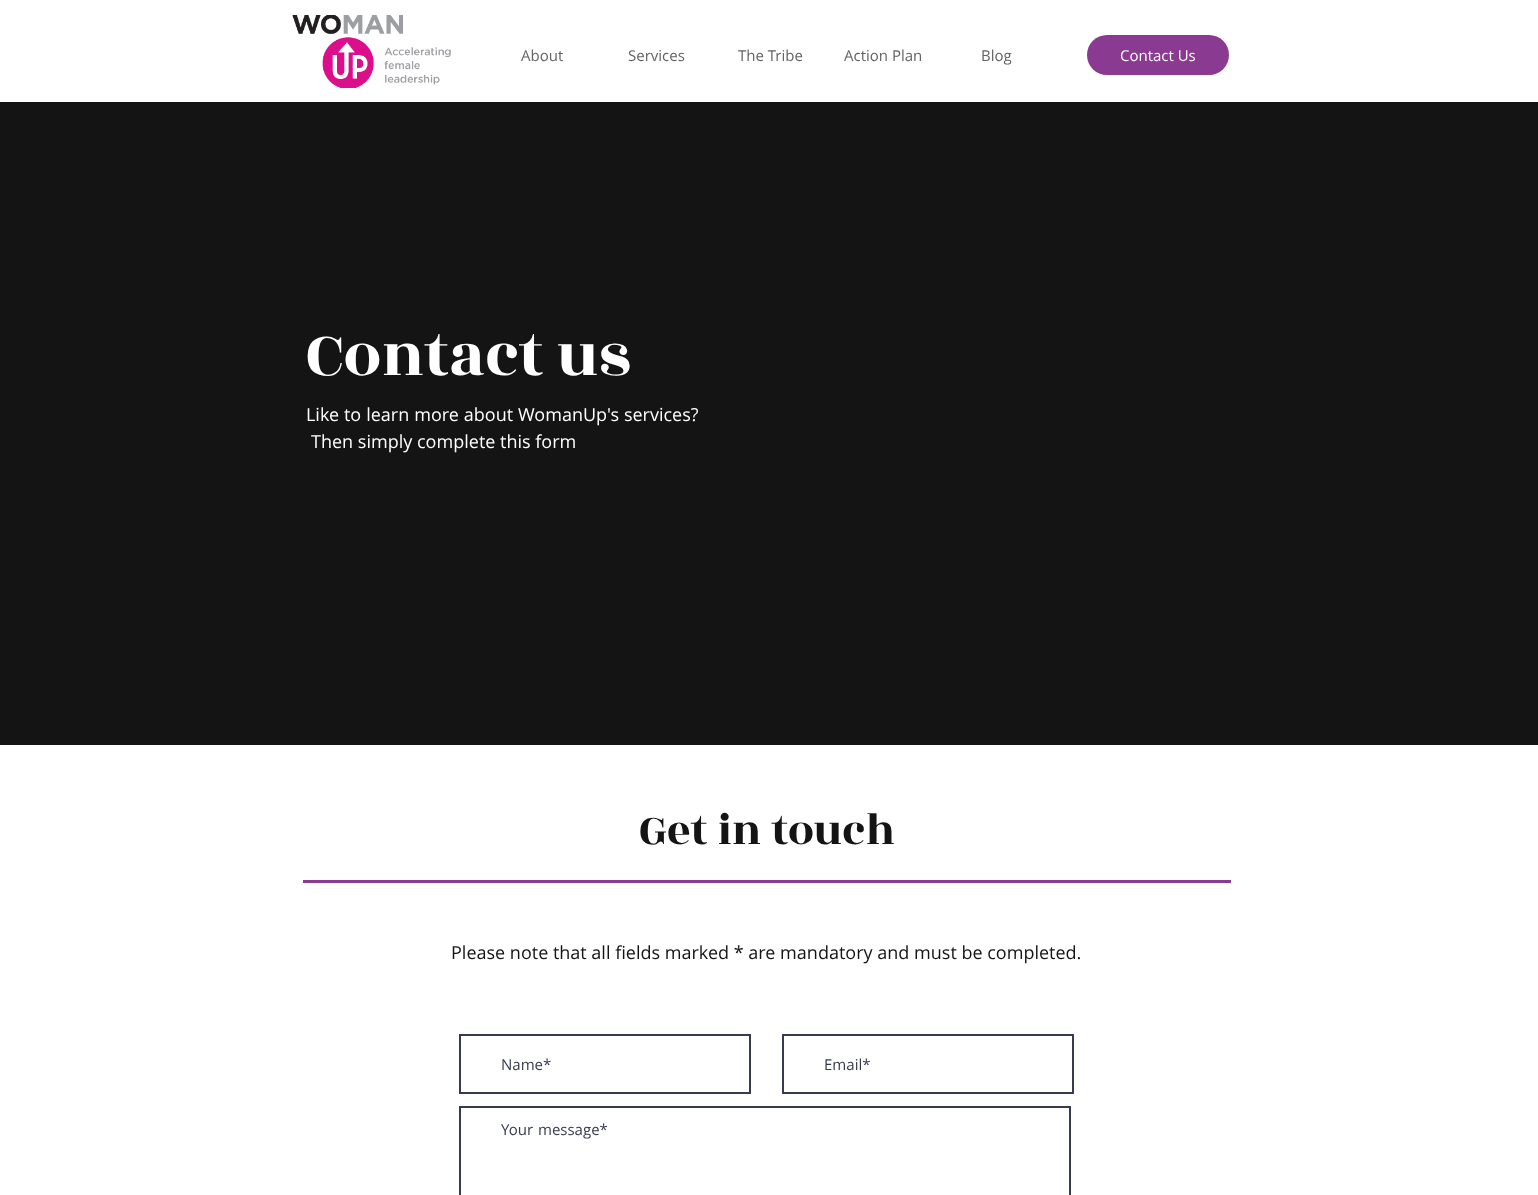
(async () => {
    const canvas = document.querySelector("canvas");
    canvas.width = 1538;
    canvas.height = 1195;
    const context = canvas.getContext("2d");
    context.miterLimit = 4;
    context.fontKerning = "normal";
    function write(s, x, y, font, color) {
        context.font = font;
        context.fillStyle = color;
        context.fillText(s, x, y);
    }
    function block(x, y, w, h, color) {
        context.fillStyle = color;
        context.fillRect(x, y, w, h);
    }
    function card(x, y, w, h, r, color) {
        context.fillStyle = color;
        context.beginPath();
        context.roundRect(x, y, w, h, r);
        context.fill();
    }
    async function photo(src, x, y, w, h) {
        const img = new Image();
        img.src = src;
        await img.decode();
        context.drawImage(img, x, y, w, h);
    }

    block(0, 0, 1538, 1195, "rgb(255, 255, 255)");
    await photo("media/1.png", 292, 15, 159, 73);
    write("About", 521, 61, "15px Open Sans", "rgb(99, 99, 99)");
    write("Services", 628, 61, "15px Open Sans", "rgb(99, 99, 99)");
    write("The Tribe", 738, 61, "15px Open Sans", "rgb(99, 99, 99)");
    write("Action Plan", 844, 61, "15px Open Sans", "rgb(99, 99, 99)");
    write("Blog", 981, 61, "15px Open Sans", "rgb(99, 99, 99)");
    card(1087, 35, 142, 40, 20, "rgb(138, 58, 144)");
    write("Contact Us", 1120, 61, "15px 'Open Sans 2'", "rgb(255, 255, 255)");
    block(0, 102, 1538, 643, "rgb(20, 20, 20)");
    write("Contact us", 306, 375, "67px Rozha One", "rgb(255, 255, 255)");
    context.wordSpacing = "0.25px";
    write("Like to learn more about WomanUp's services?", 306, 421, "18px 'Open Sans 2'", "rgb(255, 255, 255)");
    context.wordSpacing = "0px";
    write("Then simply complete this form", 311, 448, "18px 'Open Sans 2'", "rgb(255, 255, 255)");
    write("Get in touch", 639, 844, "46px Rozha One", "rgb(20, 20, 20)");
    block(303, 880, 928, 3, "rgb(138, 58, 144)");
    write("Please note that all fields marked * are mandatory and must be completed.", 451, 959, "18px 'Open Sans 2'", "rgb(20, 20, 20)");
    context.strokeStyle = "rgb(55, 59, 77)";
    context.lineWidth = 2;
    context.strokeRect(460, 1035, 290, 58);
    write("Name*", 501, 1070, "15px 'Open Sans 2'", "rgb(55, 59, 77)");
    context.strokeRect(783, 1035, 290, 58);
    write("Email*", 824, 1070, "15px 'Open Sans 2'", "rgb(55, 59, 77)");
    context.strokeRect(460, 1107, 610, 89);
    context.wordSpacing = "1px";
    write("Your message*", 501, 1135, "15px 'Open Sans 2'", "rgb(55, 59, 77)");
})();
